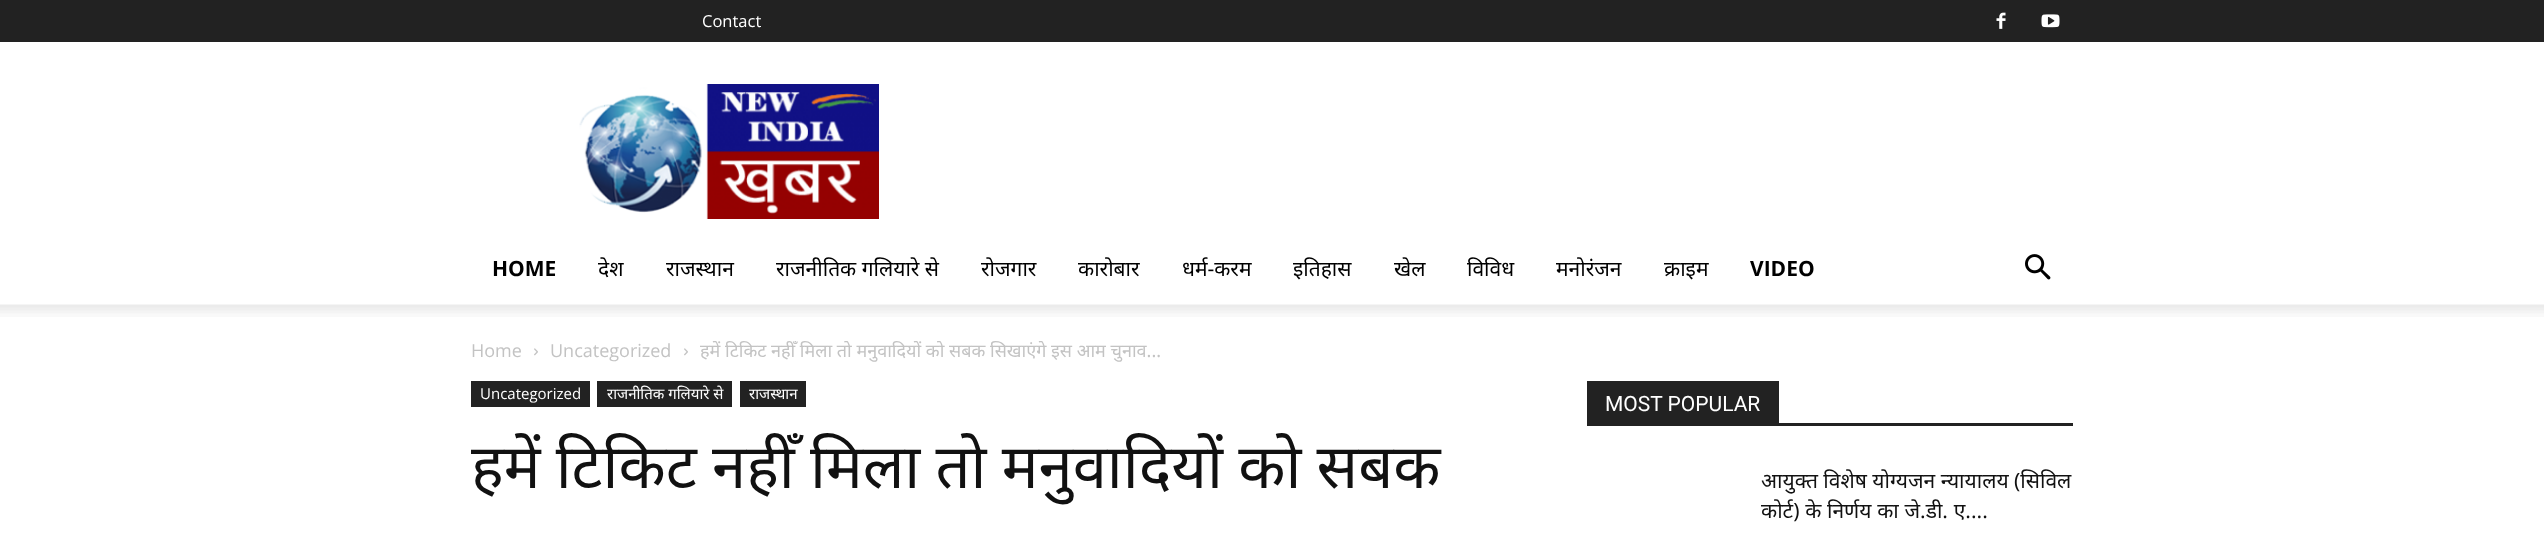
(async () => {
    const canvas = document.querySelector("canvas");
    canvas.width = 2544;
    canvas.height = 539;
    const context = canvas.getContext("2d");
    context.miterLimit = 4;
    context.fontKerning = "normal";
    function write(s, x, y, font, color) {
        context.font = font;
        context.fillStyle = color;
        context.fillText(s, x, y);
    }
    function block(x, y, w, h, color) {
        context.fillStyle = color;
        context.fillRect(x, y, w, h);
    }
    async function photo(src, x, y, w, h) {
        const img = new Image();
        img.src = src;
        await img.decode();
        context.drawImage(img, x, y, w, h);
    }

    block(0, 0, 2544, 539, "rgb(255, 255, 255)");
    block(0, 0, 2544, 42, "rgb(34, 34, 34)");
    write("Contact", 702, 27, "16.5px Open Sans", "rgb(255, 255, 255)");
    await photo("media/1.png", 1996, 12, 10, 17);
    await photo("media/2.png", 2041, 14, 19, 14);
    await photo("media/3.png", 579, 84, 300, 135);
    write("HOME", 492, 276, "bold 21px Open Sans", "rgb(0, 0, 0)");
    write("देश", 598, 276, "21px Noto Sans", "rgb(0, 0, 0)");
    write("राजस्थान", 666, 276, "21px Noto Sans", "rgb(0, 0, 0)");
    write("राजनीतिक गलियारे से", 776, 276, "21px Noto Sans", "rgb(0, 0, 0)");
    write("रोजगार", 981, 276, "21px Noto Sans", "rgb(0, 0, 0)");
    write("कारोबार", 1078, 276, "21px Noto Sans", "rgb(0, 0, 0)");
    write("धर्म-करम", 1182, 276, "21px Noto Sans", "rgb(0, 0, 0)");
    write("इतिहास", 1293, 276, "21px Noto Sans", "rgb(0, 0, 0)");
    write("खेल", 1394, 276, "21px Noto Sans", "rgb(0, 0, 0)");
    write("विविध", 1467, 276, "21px Noto Sans", "rgb(0, 0, 0)");
    write("मनोरंजन", 1556, 276, "21px Noto Sans", "rgb(0, 0, 0)");
    write("क्राइम", 1664, 276, "21px Noto Sans", "rgb(0, 0, 0)");
    write("VIDEO", 1750, 276, "bold 21px Open Sans", "rgb(0, 0, 0)");
    await photo("media/4.png", 2025, 254, 26, 26);
    await photo("media/5.png", 0, 304, 2544, 13);
    write("Home", 471, 357, "18px Open Sans", "rgb(195, 195, 195)");
    await photo("media/6.png", 534, 348, 4, 8);
    write("Uncategorized", 550, 357, "18px Open Sans", "rgb(195, 195, 195)");
    await photo("media/6.png", 684, 348, 4, 8);
    write("हमें टिकिट नहीँ मिला तो मनुवादियों को सबक सिखाएंगे इस आम चुनाव...", 700, 357, "18px Noto Sans", "rgb(195, 195, 195)");
    block(471, 381, 119, 26, "rgb(34, 34, 34)");
    write("Uncategorized", 480, 399, "15px Open Sans", "rgb(255, 255, 255)");
    block(597, 381, 135, 26, "rgb(34, 34, 34)");
    write("राजनीतिक गलियारे से", 607, 399, "15px Noto Sans", "rgb(255, 255, 255)");
    block(740, 381, 66, 26, "rgb(34, 34, 34)");
    write("राजस्थान", 749, 399, "15px Noto Sans", "rgb(255, 255, 255)");
    context.wordSpacing = "-0.75px";
    write("हमें टिकिट नहीँ मिला तो मनुवादियों को सबक", 471, 488, "61.5px Noto Sans", "rgb(17, 17, 17)");
    block(1587, 423, 486, 3, "rgb(34, 34, 34)");
    block(1587, 381, 192, 42, "rgb(34, 34, 34)");
    context.wordSpacing = "0px";
    write("MOST POPULAR", 1605, 411, "21px Roboto", "rgb(255, 255, 255)");
    write("आयुक्त विशेष योग्यजन न्यायालय (सिविल", 1761, 488, "21px Noto Sans", "rgb(17, 17, 17)");
    context.wordSpacing = "0.25px";
    write("कोर्ट) के निर्णय का जे.डी. ए....", 1761, 518, "21px Noto Sans", "rgb(17, 17, 17)");
})();
